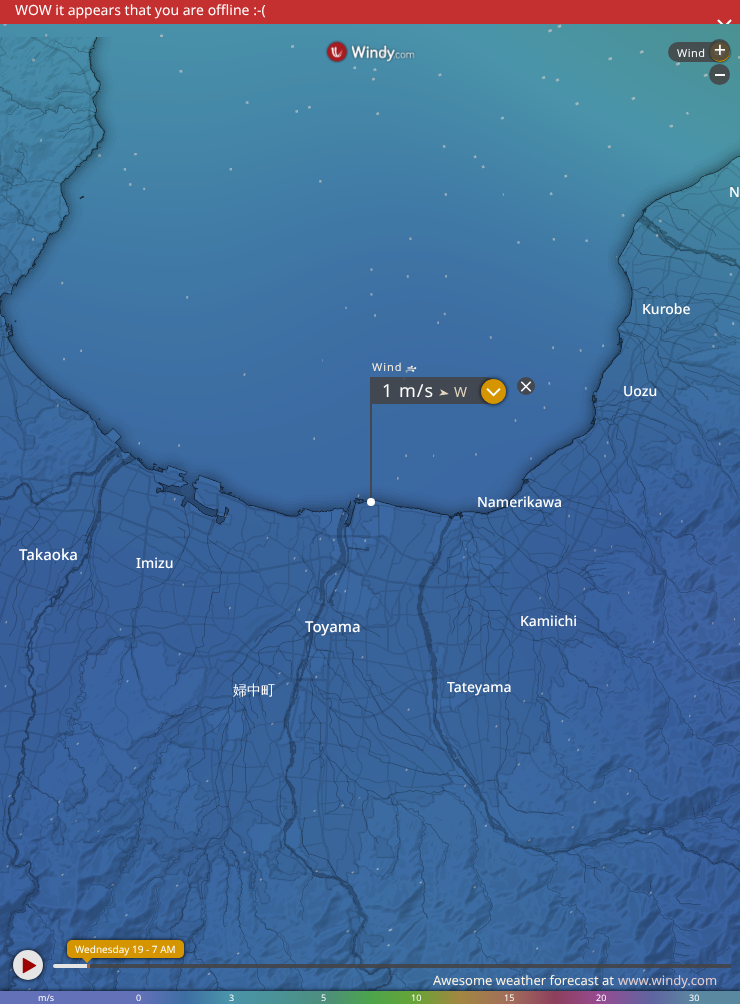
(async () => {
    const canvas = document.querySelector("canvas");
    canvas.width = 740;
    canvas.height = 1004;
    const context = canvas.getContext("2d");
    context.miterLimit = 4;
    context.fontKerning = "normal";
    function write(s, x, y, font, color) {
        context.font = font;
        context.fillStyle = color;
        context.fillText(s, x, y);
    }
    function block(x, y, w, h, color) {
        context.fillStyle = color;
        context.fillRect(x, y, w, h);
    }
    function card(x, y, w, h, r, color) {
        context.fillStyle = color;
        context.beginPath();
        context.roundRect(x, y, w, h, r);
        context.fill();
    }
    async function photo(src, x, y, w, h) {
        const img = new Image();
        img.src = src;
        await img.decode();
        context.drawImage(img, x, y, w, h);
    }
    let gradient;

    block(0, 0, 740, 1004, "rgb(255, 255, 255)");
    block(0, 0, 740, 24, "rgb(196, 47, 47)");
    write("WOW it appears that you are offline :-(", 15, 15, "14px Noto Sans", "rgb(255, 255, 255)");
    await photo("media/1.png", 717, 19, 15, 5);
    await photo("media/11.png", 181, 37, 256, 256);
    await photo("media/6.png", 0, 24, 181, 13);
    await photo("media/7.png", 181, 24, 256, 13);
    await photo("media/8.png", 437, 24, 256, 13);
    await photo("media/9.png", 693, 24, 47, 13);
    await photo("media/10.png", 0, 37, 181, 256);
    await photo("media/12.png", 437, 37, 256, 256);
    await photo("media/13.png", 693, 37, 47, 256);
    await photo("media/14.png", 0, 293, 181, 256);
    await photo("media/15.png", 181, 293, 256, 256);
    await photo("media/16.png", 437, 293, 256, 256);
    await photo("media/17.png", 693, 293, 47, 256);
    await photo("media/18.png", 0, 549, 181, 256);
    await photo("media/19.png", 181, 549, 256, 256);
    await photo("media/20.png", 437, 549, 256, 256);
    await photo("media/21.png", 693, 549, 47, 256);
    await photo("media/22.png", 0, 805, 181, 186);
    await photo("media/23.png", 181, 805, 256, 186);
    await photo("media/24.png", 437, 805, 256, 186);
    block(693, 805, 47, 186, "rgb(58, 98, 160)");
    await photo("media/25.png", 3, 24, 737, 967);
    await photo("media/2.png", 325, 40, 24, 24);
    await photo("media/3.png", 350, 44, 66, 19);
    card(668, 42, 62, 20, 10, "rgba(68, 65, 65, 0.84)");
    context.letterSpacing = "0.5px";
    write("Wind", 677, 57, "11px Noto Sans", "rgb(255, 255, 255)");
    context.fillStyle = "rgb(0, 0, 0)";
    context.filter = "blur(1px)";
    context.beginPath();
    context.roundRect(710, 42, 20, 20, 10);
    context.fill();
    context.filter = "none";
    context.fillStyle = "rgb(212, 149, 0)";
    context.beginPath();
    context.arc(720, 52, 10, 0, Math.PI * 2);
    context.fill();
    await photo("media/4.png", 714, 50, 11, 7);
    card(709, 39, 21, 22, 10.5, "rgba(68, 65, 65, 0.84)");
    await photo("media/5.png", 714, 44, 12, 11);
    context.beginPath();
    context.arc(719.5, 74.5, 10.5, 0, Math.PI * 2);
    context.fill();
    block(715, 74, 10, 2, "rgb(255, 255, 255)");
    await photo("media/26.png", 0, 37, 119, 256);
    await photo("media/27.png", 608, 170, 85, 123);
    await photo("media/28.png", 693, 139, 47, 154);
    await photo("media/29.png", 0, 293, 181, 256);
    await photo("media/30.png", 181, 458, 256, 91);
    await photo("media/31.png", 437, 293, 256, 256);
    await photo("media/32.png", 693, 293, 47, 256);
    await photo("media/33.png", 0, 549, 181, 256);
    await photo("media/34.png", 181, 549, 256, 256);
    await photo("media/35.png", 437, 549, 256, 256);
    await photo("media/36.png", 693, 549, 47, 256);
    await photo("media/37.png", 0, 805, 181, 186);
    await photo("media/38.png", 181, 805, 256, 186);
    await photo("media/39.png", 437, 805, 256, 186);
    await photo("media/40.png", 693, 805, 47, 186);
    context.letterSpacing = "0px";
    write("N", 729, 197, "500 14px Noto Sans", "rgb(255, 255, 255)");
    write("Kurobe", 642, 314, "500 14px Noto Sans", "rgb(255, 255, 255)");
    write("Uozu", 623, 396, "500 14px Noto Sans", "rgb(255, 255, 255)");
    write("Namerikawa", 477, 507, "500 14px Noto Sans", "rgb(255, 255, 255)");
    write("Takaoka", 19, 560, "500 15px Noto Sans", "rgb(255, 255, 255)");
    write("Imizu", 136, 568, "500 14px Noto Sans", "rgb(255, 255, 255)");
    write("Toyama", 305, 632, "500 15px Noto Sans", "rgb(255, 255, 255)");
    write("婦中町", 233, 695, "500 14px WenQuanYi Zen Hei", "rgb(255, 255, 255)");
    write("Kamiichi", 520, 626, "500 14px Noto Sans", "rgb(255, 255, 255)");
    write("Tateyama", 447, 692, "500 14px Noto Sans", "rgb(255, 255, 255)");
    block(370, 377, 2, 125, "rgba(68, 65, 65, 0.84)");
    context.fillStyle = "rgb(255, 255, 255)";
    context.beginPath();
    context.arc(371, 502, 4, 0, Math.PI * 2);
    context.fill();
    context.fillStyle = "rgba(68, 65, 65, 0.84)";
    context.beginPath();
    context.roundRect(372, 377, 127, 27, [0, 13.5, 13.5, 0]);
    context.fill();
    context.letterSpacing = "1px";
    write("Wind", 372, 371, "11px Noto Sans", "rgb(255, 243, 225)");
    await photo("media/41.png", 407, 365, 10, 7);
    write("1 m/s", 382, 397, "18px Noto Sans", "rgb(255, 255, 255)");
    await photo("media/42.png", 439, 389, 10, 7);
    write("W", 454, 397, "14px Noto Sans", "rgb(228, 213, 189)");
    context.fillStyle = "rgb(0, 0, 0)";
    context.filter = "blur(2px)";
    context.beginPath();
    context.roundRect(481, 379, 25, 25, 12.5);
    context.fill();
    context.filter = "none";
    context.fillStyle = "rgb(212, 149, 0)";
    context.beginPath();
    context.arc(493.5, 391.5, 12.5, 0, Math.PI * 2);
    context.fill();
    await photo("media/43.png", 486, 388, 15, 9);
    context.fillStyle = "rgb(67, 72, 81)";
    context.beginPath();
    context.arc(526, 386, 9, 0, Math.PI * 2);
    context.fill();
    await photo("media/44.png", 520, 381, 12, 11);
    context.fillStyle = "rgb(0, 0, 0)";
    context.filter = "blur(2px)";
    context.beginPath();
    context.roundRect(13, 950, 30, 30, 15);
    context.fill();
    context.filter = "none";
    context.fillStyle = "rgb(229, 229, 229)";
    context.beginPath();
    context.arc(28, 965, 15, 0, Math.PI * 2);
    context.fill();
    await photo("media/45.png", 22, 957, 15, 17);
    context.fillStyle = "rgb(0, 0, 0)";
    context.filter = "blur(2px)";
    context.beginPath();
    context.roundRect(67, 940, 117, 18, 5);
    context.fill();
    context.filter = "none";
    card(67, 940, 117, 18, 5, "rgb(212, 149, 0)");
    context.letterSpacing = "0px";
    write("Wednesday 19 - 7 AM", 75, 953, "10px Noto Sans", "rgb(255, 255, 255)");
    context.fillStyle = "rgb(212, 149, 0)";
    context.beginPath();
    context.moveTo(82, 958);
    context.lineTo(92, 958);
    context.lineTo(87, 963);
    context.closePath();
    context.fill();
    card(53, 964, 679, 4, 2, "rgba(68, 65, 65, 0.84)");
    context.fillStyle = "rgb(229, 229, 229)";
    context.beginPath();
    context.roundRect(53, 964, 34, 4, [2, 0, 0, 2]);
    context.fill();
    block(87, 964, 3, 4, "rgb(148, 96, 81)");
    context.fillStyle = "rgb(0, 0, 0)";
    context.filter = "blur(2px)";
    context.beginPath();
    context.rect(0, 991, 740, 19);
    context.fill();
    context.filter = "none";
    write("Awesome weather forecast at", 433, 985, "13px Noto Sans", "rgb(255, 243, 225)");
    write("www.windy.com", 618, 985, "13px Noto Sans", "rgb(230, 206, 206)");
    gradient = context.createLinearGradient(0, 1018, 740, 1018);
    gradient.addColorStop(0, "rgb(98, 113, 184)");
    gradient.addColorStop(0.19, "rgb(98, 113, 184)");
    gradient.addColorStop(0.25, "rgb(61, 110, 163)");
    gradient.addColorStop(0.31, "rgb(74, 148, 170)");
    gradient.addColorStop(0.38, "rgb(74, 146, 148)");
    gradient.addColorStop(0.44, "rgb(77, 142, 124)");
    gradient.addColorStop(0.5, "rgb(76, 164, 76)");
    gradient.addColorStop(0.56, "rgb(103, 164, 54)");
    gradient.addColorStop(0.62, "rgb(162, 135, 64)");
    gradient.addColorStop(0.69, "rgb(162, 109, 92)");
    gradient.addColorStop(0.75, "rgb(141, 63, 92)");
    gradient.addColorStop(0.81, "rgb(151, 75, 145)");
    gradient.addColorStop(0.88, "rgb(95, 100, 160)");
    gradient.addColorStop(0.94, "rgb(91, 136, 161)");
    gradient.addColorStop(1, "rgb(91, 136, 161)");
    context.fillStyle = gradient;
    context.fillRect(0, 991, 740, 13);
    write("m/s", 38, 1001, "9px Noto Sans", "rgb(255, 255, 255)");
    write("0", 136, 1001, "9px Noto Sans", "rgb(255, 255, 255)");
    write("3", 229, 1001, "9px Noto Sans", "rgb(255, 255, 255)");
    write("5", 321, 1001, "9px Noto Sans", "rgb(255, 255, 255)");
    write("10", 411, 1001, "9px Noto Sans", "rgb(255, 255, 255)");
    write("15", 504, 1001, "9px Noto Sans", "rgb(255, 255, 255)");
    write("20", 596, 1001, "9px Noto Sans", "rgb(255, 255, 255)");
    write("30", 689, 1001, "9px Noto Sans", "rgb(255, 255, 255)");
})();
